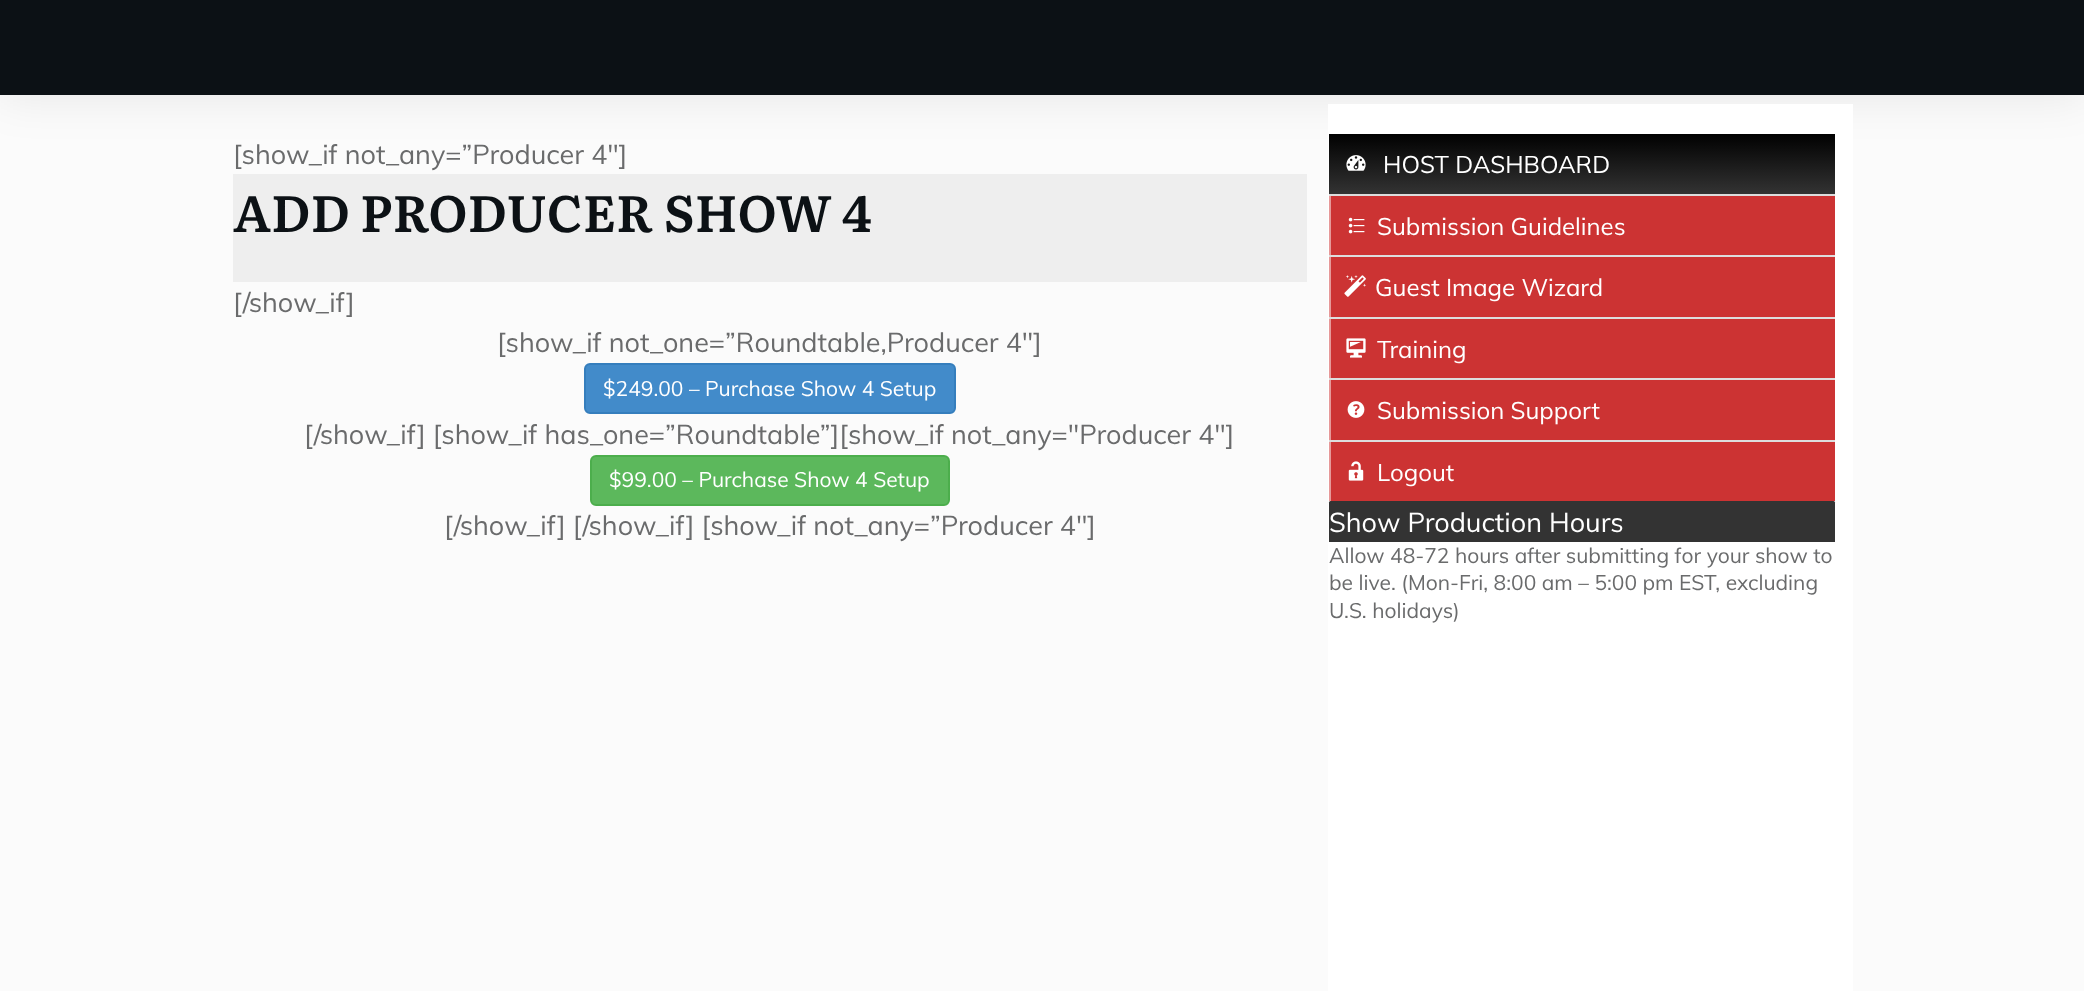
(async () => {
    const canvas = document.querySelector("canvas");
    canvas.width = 2084;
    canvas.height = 991;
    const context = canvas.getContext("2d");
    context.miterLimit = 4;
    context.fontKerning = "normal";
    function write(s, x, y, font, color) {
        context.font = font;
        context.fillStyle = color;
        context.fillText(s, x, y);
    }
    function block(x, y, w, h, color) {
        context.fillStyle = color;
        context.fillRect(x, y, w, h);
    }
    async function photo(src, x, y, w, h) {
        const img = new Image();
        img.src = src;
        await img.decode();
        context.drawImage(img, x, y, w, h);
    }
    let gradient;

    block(0, 0, 2084, 991, "rgb(251, 251, 251)");
    context.fillStyle = "rgba(0, 0, 0, 0.08)";
    context.filter = "blur(22.5px)";
    context.beginPath();
    context.rect(0, 3, 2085, 95);
    context.fill();
    context.filter = "none";
    block(0, 0, 2084, 95, "rgb(12, 17, 21)");
    write("[show_if not_any=”Producer 4″]", 233, 164, "27px Muli", "rgb(106, 107, 108)");
    block(233, 174, 1074, 108, "rgb(238, 238, 238)");
    write("ADD PRODUCER SHOW 4", 233, 232, "600 51px Literata", "rgb(12, 17, 21)");
    write("[/show_if]", 233, 312, "27px Muli", "rgb(106, 107, 108)");
    write("[show_if not_one=”Roundtable,Producer 4″]", 497, 352, "27px Muli", "rgb(106, 107, 108)");
    context.fillStyle = "rgb(66, 139, 202)";
    context.beginPath();
    context.roundRect(585, 364, 370, 49, 5);
    context.fill();
    context.strokeStyle = "rgb(53, 126, 189)";
    context.lineWidth = 2;
    context.stroke();
    write("$249.00 – Purchase Show 4 Setup", 603, 396, "21px Muli", "rgb(255, 255, 255)");
    write("[/show_if] [show_if has_one=”Roundtable”][show_if not_any=\"Producer 4\"]", 304, 444, "27px Muli", "rgb(106, 107, 108)");
    context.fillStyle = "rgb(92, 184, 92)";
    context.beginPath();
    context.roundRect(591, 456, 358, 49, 5);
    context.fill();
    context.strokeStyle = "rgb(76, 174, 76)";
    context.stroke();
    write("$99.00 – Purchase Show 4 Setup", 609, 487, "21px Muli", "rgb(255, 255, 255)");
    write("[/show_if] [/show_if] [show_if not_any=”Producer 4″]", 444, 535, "27px Muli", "rgb(106, 107, 108)");
    block(1328, 104, 525, 887, "rgb(255, 255, 255)");
    block(1331, 196, 504, 305, "rgb(204, 51, 51)");
    gradient = context.createLinearGradient(1582, 133, 1582, 194);
    gradient.addColorStop(0, "rgb(0, 0, 0)");
    gradient.addColorStop(1, "rgb(51, 51, 51)");
    context.fillStyle = gradient;
    context.fillRect(1329, 134, 506, 60);
    await photo("media/1.png", 1346, 155, 20, 16);
    write("HOST DASHBOARD", 1383, 173, "24px Muli", "rgb(255, 255, 255)");
    block(1329, 195, 2, 60, "rgb(230, 153, 153)");
    block(1329, 194, 506, 2, "rgb(221, 221, 221)");
    await photo("media/2.png", 1348, 217, 17, 17);
    write("Submission Guidelines", 1377, 235, "24px Muli", "rgb(255, 255, 255)");
    block(1329, 257, 2, 60, "rgb(230, 153, 153)");
    block(1329, 255, 506, 2, "rgb(221, 221, 221)");
    await photo("media/3.png", 1344, 275, 23, 22);
    write("Guest Image Wizard", 1375, 296, "24px Muli", "rgb(255, 255, 255)");
    block(1329, 318, 2, 60, "rgb(230, 153, 153)");
    block(1329, 317, 506, 2, "rgb(221, 221, 221)");
    await photo("media/4.png", 1346, 338, 20, 20);
    write("Training", 1377, 358, "24px Muli", "rgb(255, 255, 255)");
    block(1329, 380, 2, 60, "rgb(230, 153, 153)");
    block(1329, 378, 506, 2, "rgb(221, 221, 221)");
    await photo("media/5.png", 1347, 401, 18, 17);
    write("Submission Support", 1377, 419, "24px Muli", "rgb(255, 255, 255)");
    block(1329, 441, 2, 60, "rgb(230, 153, 153)");
    block(1329, 440, 506, 2, "rgb(221, 221, 221)");
    await photo("media/6.png", 1348, 461, 16, 20);
    write("Logout", 1377, 481, "24px Muli", "rgb(255, 255, 255)");
    context.fillStyle = "rgb(51, 51, 51)";
    context.beginPath();
    context.roundRect(1329, 501, 506, 41, [1.5, 1.5, 0, 0]);
    context.fill();
    write("Show Production Hours", 1329, 532, "27px Muli", "rgb(255, 255, 255)");
    write("Allow 48-72 hours after submitting for your show to", 1329, 563, "21px Muli", "rgb(106, 107, 108)");
    write("be live. (Mon-Fri, 8:00 am – 5:00 pm EST, excluding", 1329, 590, "21px Muli", "rgb(106, 107, 108)");
    write("U.S. holidays)", 1329, 618, "21px Muli", "rgb(106, 107, 108)");
})();
